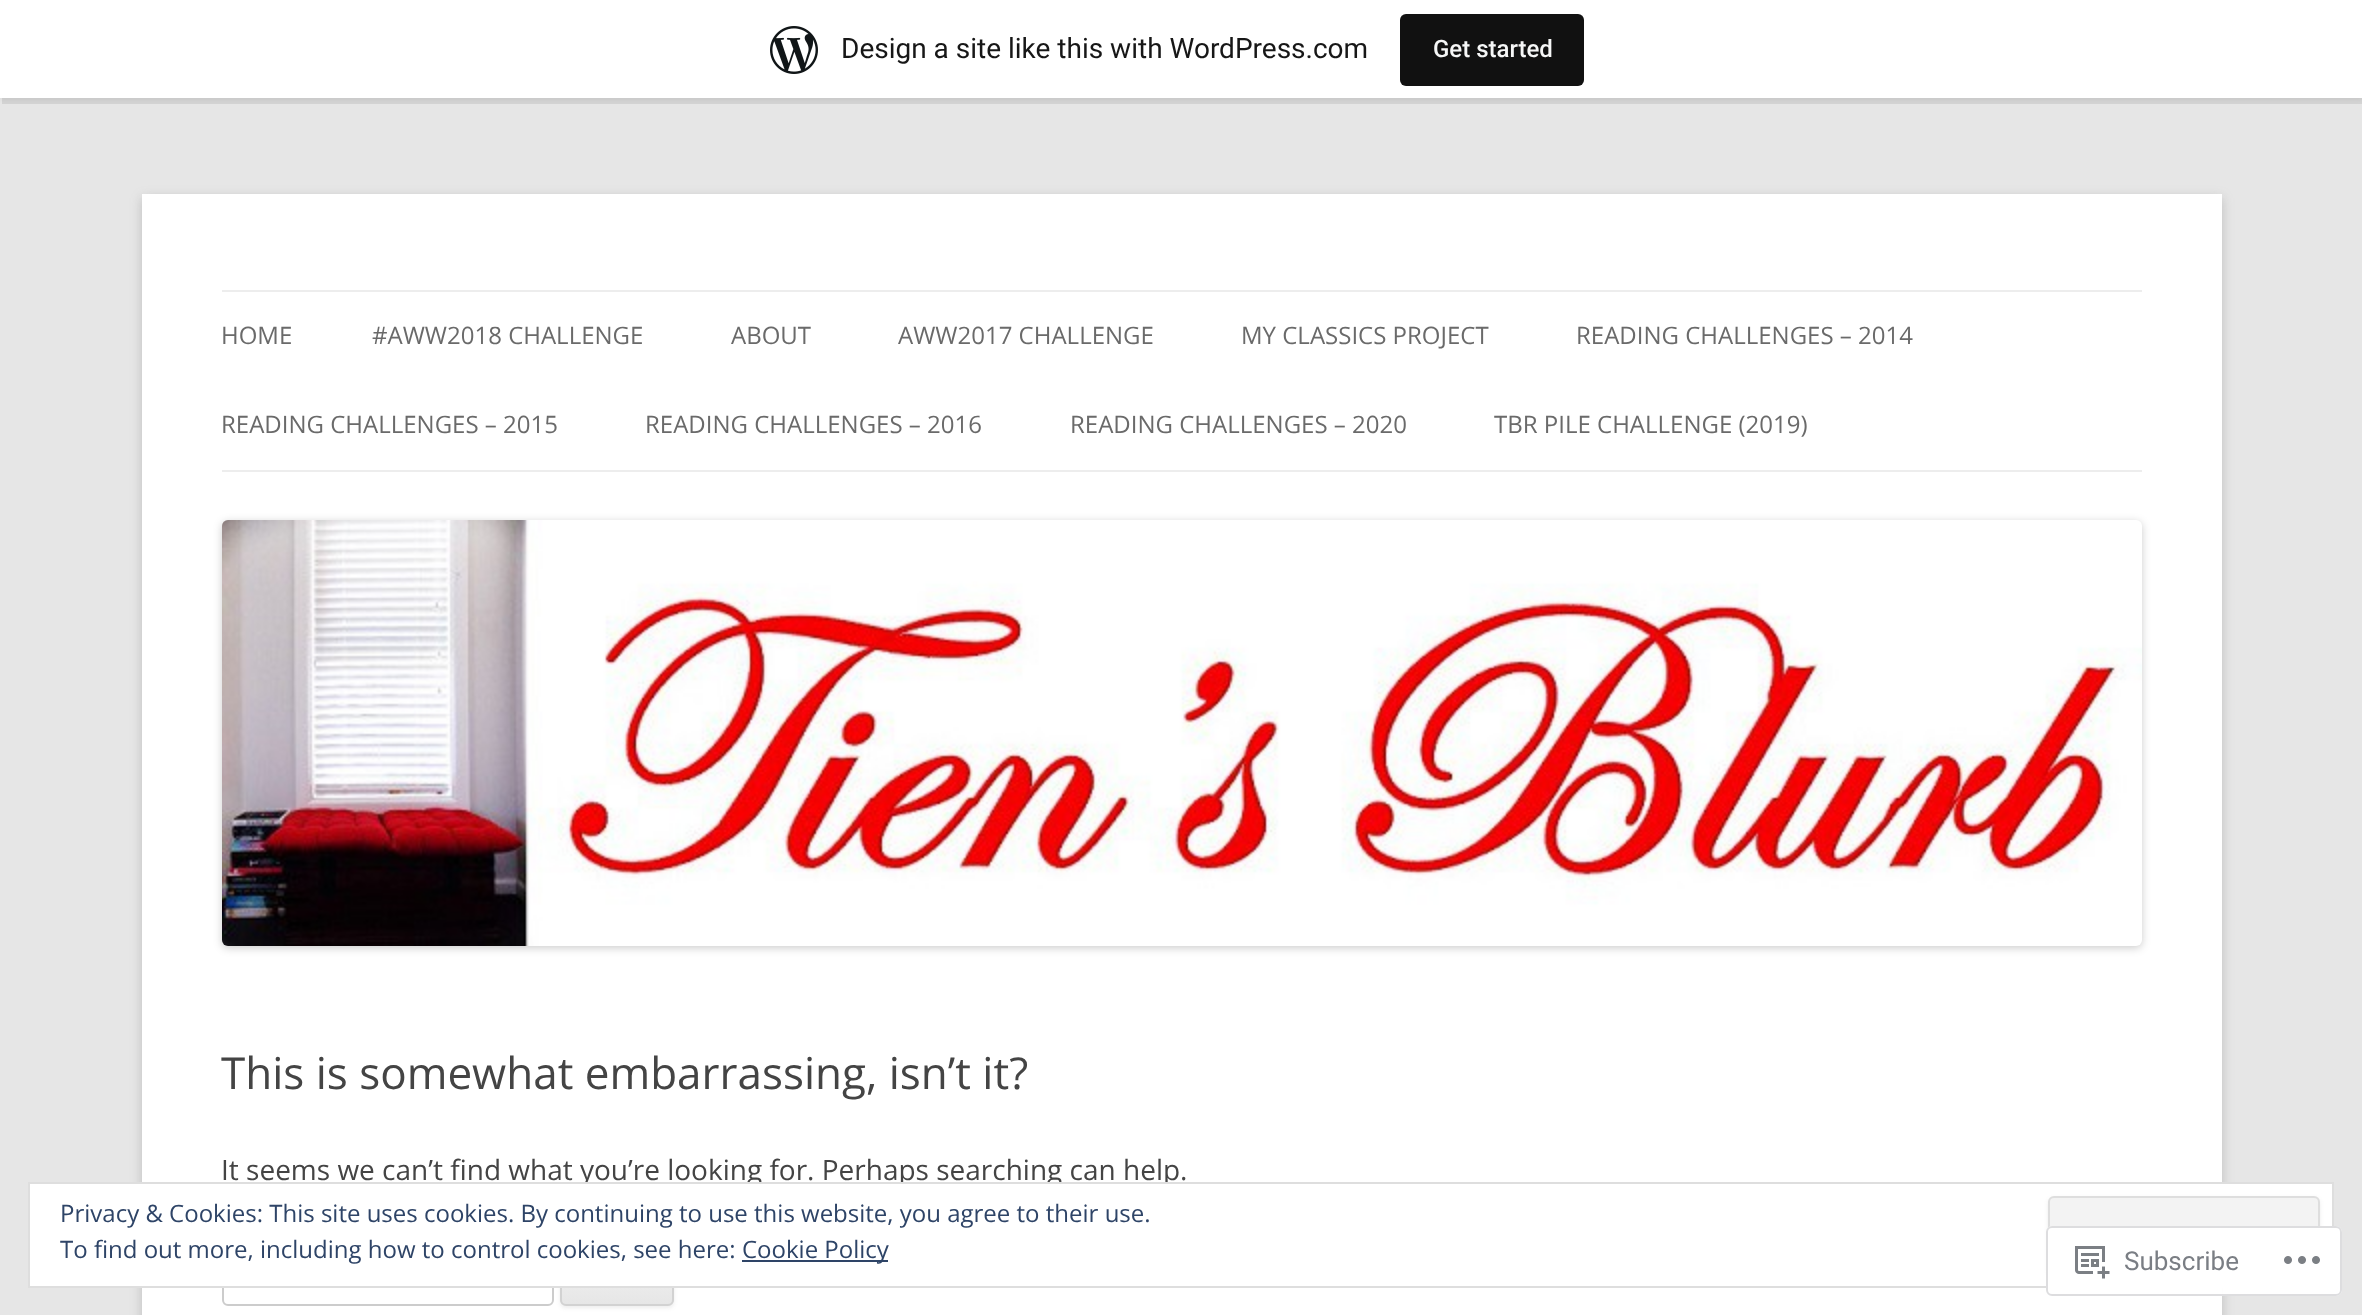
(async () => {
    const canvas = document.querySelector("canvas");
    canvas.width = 2362;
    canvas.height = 1315;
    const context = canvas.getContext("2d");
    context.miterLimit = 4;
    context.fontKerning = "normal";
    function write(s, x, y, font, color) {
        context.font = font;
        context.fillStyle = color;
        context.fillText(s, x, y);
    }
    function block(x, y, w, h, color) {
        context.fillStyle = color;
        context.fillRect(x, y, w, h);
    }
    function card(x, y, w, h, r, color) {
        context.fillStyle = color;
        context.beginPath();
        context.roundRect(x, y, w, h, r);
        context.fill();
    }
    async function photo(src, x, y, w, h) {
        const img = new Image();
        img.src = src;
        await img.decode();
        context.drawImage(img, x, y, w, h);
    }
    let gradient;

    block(0, 0, 2362, 1315, "rgb(230, 230, 230)");
    context.fillStyle = "rgba(0, 0, 0, 0.05)";
    context.filter = "blur(2px)";
    context.beginPath();
    context.rect(0, 2, 2362, 98);
    context.fill();
    context.filter = "none";
    context.fillStyle = "rgba(0, 0, 0, 0.08)";
    context.beginPath();
    context.moveTo(2, 98);
    context.lineTo(2, 104);
    context.lineTo(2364, 104);
    context.lineTo(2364, 6);
    context.lineTo(2362, 6);
    context.lineTo(2362, 98);
    context.closePath();
    context.fill();
    block(0, 0, 2362, 98, "rgb(255, 255, 255)");
    await photo("media/1.png", 770, 26, 48, 48);
    write("Design a site like this with WordPress.com", 841, 58, "28px Roboto", "rgb(23, 23, 23)");
    card(1400, 14, 184, 72, 6, "rgb(17, 17, 17)");
    write("Get started", 1433, 57, "500 24px Roboto", "rgb(246, 247, 247)");
    context.fillStyle = "rgba(100, 100, 100, 0.3)";
    context.filter = "blur(6px)";
    context.beginPath();
    context.rect(142, 198, 2080, 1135);
    context.fill();
    context.filter = "none";
    block(142, 194, 2080, 1121, "rgb(255, 255, 255)");
    block(222, 290, 1920, 2, "rgb(237, 237, 237)");
    block(222, 470, 1920, 2, "rgb(237, 237, 237)");
    write("HOME", 221, 344, "24px Open Sans", "rgb(106, 106, 106)");
    write("#AWW2018 CHALLENGE", 372, 344, "24px Open Sans", "rgb(106, 106, 106)");
    write("ABOUT", 731, 344, "24px Open Sans", "rgb(106, 106, 106)");
    write("AWW2017 CHALLENGE", 898, 344, "24px Open Sans", "rgb(106, 106, 106)");
    write("MY CLASSICS PROJECT", 1241, 344, "24px Open Sans", "rgb(106, 106, 106)");
    write("READING CHALLENGES – 2014", 1576, 344, "24px Open Sans", "rgb(106, 106, 106)");
    write("READING CHALLENGES – 2015", 221, 433, "24px Open Sans", "rgb(106, 106, 106)");
    write("READING CHALLENGES – 2016", 645, 433, "24px Open Sans", "rgb(106, 106, 106)");
    write("READING CHALLENGES – 2020", 1070, 433, "24px Open Sans", "rgb(106, 106, 106)");
    write("TBR PILE CHALLENGE (2019)", 1494, 433, "24px Open Sans", "rgb(106, 106, 106)");
    context.fillStyle = "rgba(0, 0, 0, 0.2)";
    context.filter = "blur(4px)";
    context.beginPath();
    context.roundRect(222, 522, 1920, 426, 6);
    context.fill();
    context.filter = "none";
    await photo("media/2.png", 222, 520, 1920, 426);
    write("This is somewhat embarrassing, isn’t it?", 221, 1089, "44px Open Sans", "rgb(68, 68, 68)");
    write("It seems we can’t find what you’re looking for. Perhaps searching can help.", 221, 1180, "28px Open Sans", "rgb(68, 68, 68)");
    context.beginPath();
    context.roundRect(223, 1243, 330, 62, 5);
    context.strokeStyle = "rgb(204, 204, 204)";
    context.lineWidth = 2;
    context.stroke();
    context.fillStyle = "rgba(64, 64, 64, 0.1)";
    context.filter = "blur(2px)";
    context.beginPath();
    context.roundRect(560, 1248, 114, 60, 6);
    context.fill();
    context.filter = "none";
    context.save();
    context.beginPath();
    context.roundRect(560, 1246, 114, 60, 6);
    context.clip();
    gradient = context.createLinearGradient(617, 1248, 617, 1304);
    gradient.addColorStop(0, "rgb(244, 244, 244)");
    gradient.addColorStop(1, "rgb(230, 230, 230)");
    context.fillStyle = gradient;
    context.fillRect(560, 1288, 114, 16);
    context.restore();
    context.beginPath();
    context.roundRect(561, 1247, 112, 58, 5);
    context.strokeStyle = "rgb(210, 210, 210)";
    context.stroke();
    context.fillStyle = "rgb(255, 255, 255)";
    context.beginPath();
    context.rect(29, 1183, 2304, 104);
    context.fill();
    context.strokeStyle = "rgb(222, 222, 222)";
    context.stroke();
    write("Privacy & Cookies: This site uses cookies. By continuing to use this website, you agree to their use.", 60, 1222, "24px Open Sans", "rgb(46, 68, 103)");
    context.fillStyle = "rgba(64, 64, 64, 0.1)";
    context.filter = "blur(2px)";
    context.beginPath();
    context.roundRect(2048, 1198, 272, 78, 6);
    context.fill();
    context.filter = "none";
    context.fillStyle = "rgb(243, 243, 243)";
    context.beginPath();
    context.roundRect(2049, 1197, 270, 76, 5);
    context.fill();
    context.stroke();
    write("To find out more, including how to control cookies, see here:", 60, 1258, "24px Open Sans", "rgb(46, 68, 103)");
    block(742, 1260, 146, 2, "rgb(46, 68, 103)");
    write("Cookie Policy", 742, 1258, "24px Open Sans", "rgb(46, 68, 103)");
    card(2046, 1226, 296, 70, 6, "rgba(255, 255, 255, 0.98)");
    context.beginPath();
    context.roundRect(2047, 1227, 294, 68, 5);
    context.strokeStyle = "rgba(220, 220, 222, 0.98)";
    context.stroke();
    await photo("media/3.png", 2075, 1246, 35, 33);
    write("Subscribe", 2124, 1270, "26px Roboto", "rgb(122, 126, 132)");
    await photo("media/4.png", 2284, 1256, 36, 8);
})();
